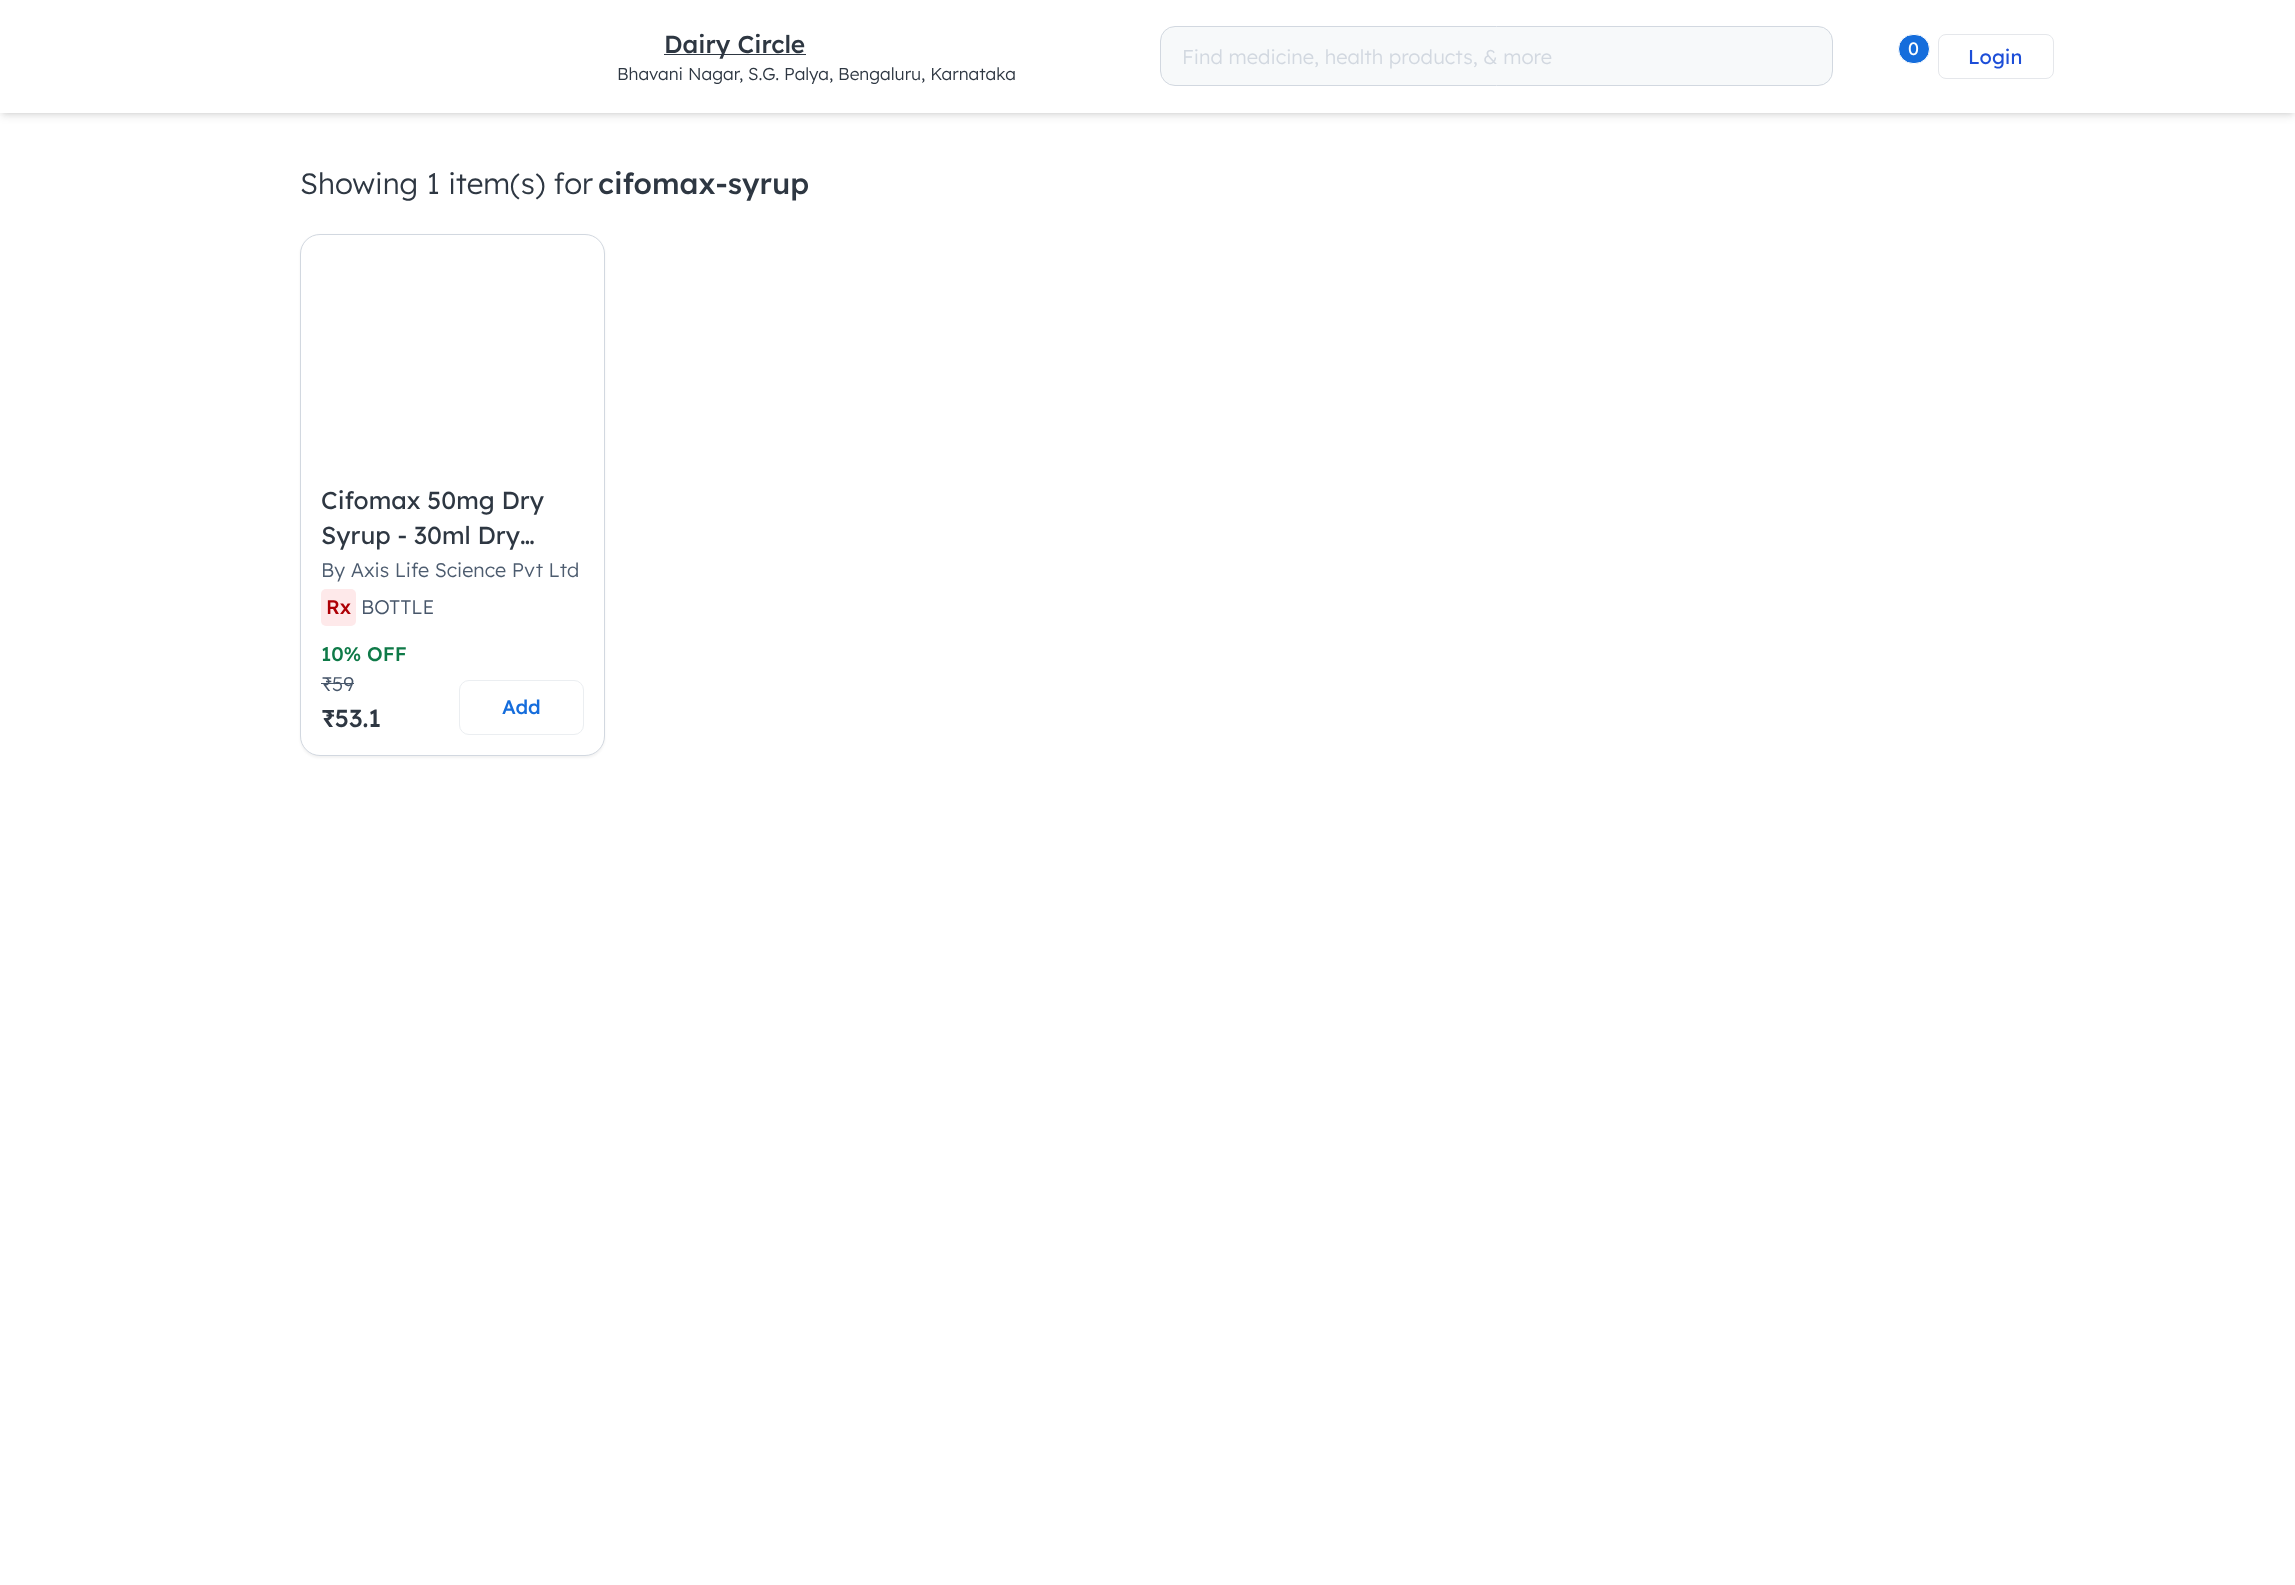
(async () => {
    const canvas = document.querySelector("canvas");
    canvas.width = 2295;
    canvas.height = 1585;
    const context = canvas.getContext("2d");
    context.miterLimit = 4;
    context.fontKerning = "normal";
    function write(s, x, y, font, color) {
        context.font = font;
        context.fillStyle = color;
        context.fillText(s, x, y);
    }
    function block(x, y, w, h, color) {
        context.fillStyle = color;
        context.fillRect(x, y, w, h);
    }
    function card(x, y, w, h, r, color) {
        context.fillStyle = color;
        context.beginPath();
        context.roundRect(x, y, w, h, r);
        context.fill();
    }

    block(0, 0, 2295, 1585, "rgb(255, 255, 255)");
    context.fillStyle = "rgba(0, 0, 0, 0.1)";
    context.filter = "blur(2.5px)";
    context.beginPath();
    context.rect(3, 5, 2290, 108);
    context.fill();
    context.filter = "none";
    context.filter = "blur(4px)";
    context.beginPath();
    context.rect(1, 6, 2293, 110);
    context.fill();
    context.filter = "none";
    block(0, 0, 2295, 113, "rgb(255, 255, 255)");
    block(664, 54, 142, 1, "rgb(46, 55, 66)");
    write("Dairy Circle", 664, 53, "500 24.5px Lexend Deca", "rgb(46, 55, 66)");
    write("Bhavani Nagar, S.G. Palya, Bengaluru, Karnataka", 617, 80, "300 17.25px Lexend Deca", "rgb(46, 55, 66)");
    context.fillStyle = "rgb(247, 249, 250)";
    context.beginPath();
    context.roundRect(1160.5, 26.5, 672, 59, 14.5);
    context.fill();
    context.strokeStyle = "rgb(210, 216, 224)";
    context.stroke();
    write("Find medicine, health products, & more", 1182, 64, "300 20px Lexend Deca", "rgb(210, 216, 224)");
    context.fillStyle = "rgb(21, 109, 220)";
    context.beginPath();
    context.roundRect(1898.5, 34.5, 31, 29, 14.5);
    context.fill();
    context.strokeStyle = "rgb(255, 255, 255)";
    context.stroke();
    write("0", 1908, 55, "18px Lexend Deca", "rgb(255, 255, 255)");
    context.beginPath();
    context.roundRect(1938.5, 34.5, 115, 44, 7.5);
    context.strokeStyle = "rgb(229, 231, 235)";
    context.stroke();
    write("Login", 1968, 64, "20px Lexend Deca", "rgb(29, 78, 216)");
    write("Showing 1 item(s) for", 300, 194, "300 29.5px Lexend Deca", "rgb(46, 55, 66)");
    write("cifomax-syrup", 598, 194, "500 29.5px Lexend Deca", "rgb(46, 55, 66)");
    context.fillStyle = "rgba(0, 0, 0, 0.05)";
    context.filter = "blur(1px)";
    context.beginPath();
    context.roundRect(300, 235, 305, 523, 20);
    context.fill();
    context.filter = "none";
    context.fillStyle = "rgb(255, 255, 255)";
    context.beginPath();
    context.roundRect(300.5, 234.5, 304, 521, 19.5);
    context.fill();
    context.strokeStyle = "rgb(210, 216, 224)";
    context.stroke();
    write("Cifomax 50mg Dry", 321, 509, "24.5px Lexend Deca", "rgb(46, 55, 66)");
    write("Syrup - 30ml Dry…", 321, 544, "24.5px Lexend Deca", "rgb(46, 55, 66)");
    write("By Axis Life Science Pvt Ltd", 321, 577, "300 19.75px Lexend Deca", "rgb(77, 92, 111)");
    card(321, 589, 35, 37, 5, "rgb(254, 233, 234)");
    write("Rx", 326, 614, "500 19.75px Lexend Deca", "rgb(174, 0, 6)");
    write("BOTTLE", 361, 614, "300 19.75px Lexend Deca", "rgb(71, 86, 106)");
    write("10% OFF", 321, 661, "500 19.75px Lexend Deca", "rgb(15, 122, 72)");
    write("₹", 321, 691, "300 19.75px Lexend Deca", "rgb(71, 86, 106)");
    block(321, 683, 12, 1, "rgb(71, 86, 106)");
    write("59", 332, 691, "300 19.75px Lexend Deca", "rgb(71, 86, 106)");
    block(333, 683, 21, 1, "rgb(71, 86, 106)");
    write("₹53.1", 321, 727, "500 24.5px Lexend Deca", "rgb(46, 55, 66)");
    context.beginPath();
    context.roundRect(459.5, 680.5, 124, 54, 9.5);
    context.strokeStyle = "rgb(235, 238, 241)";
    context.stroke();
    write("Add", 502, 714, "500 19.75px Lexend Deca", "rgb(21, 109, 220)");
})();
